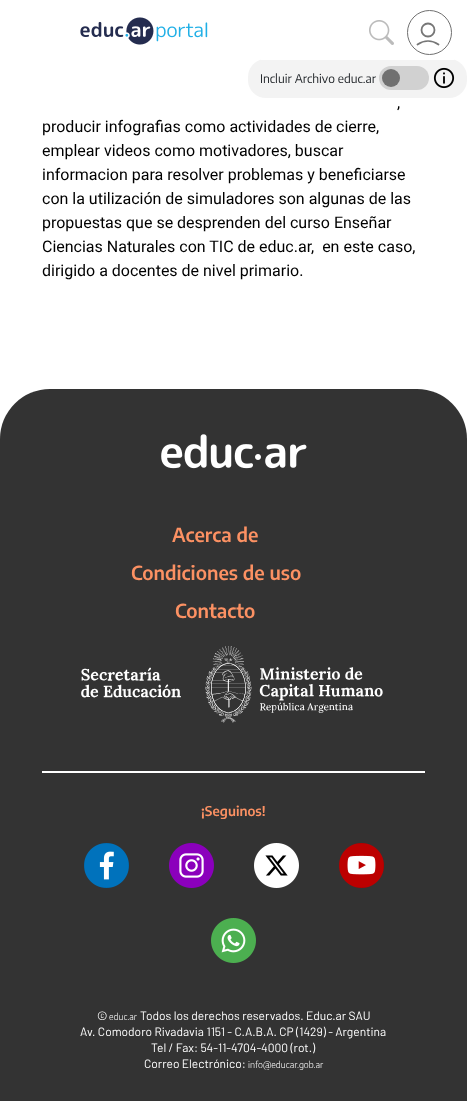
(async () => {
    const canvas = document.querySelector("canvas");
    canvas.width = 467;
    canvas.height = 1101;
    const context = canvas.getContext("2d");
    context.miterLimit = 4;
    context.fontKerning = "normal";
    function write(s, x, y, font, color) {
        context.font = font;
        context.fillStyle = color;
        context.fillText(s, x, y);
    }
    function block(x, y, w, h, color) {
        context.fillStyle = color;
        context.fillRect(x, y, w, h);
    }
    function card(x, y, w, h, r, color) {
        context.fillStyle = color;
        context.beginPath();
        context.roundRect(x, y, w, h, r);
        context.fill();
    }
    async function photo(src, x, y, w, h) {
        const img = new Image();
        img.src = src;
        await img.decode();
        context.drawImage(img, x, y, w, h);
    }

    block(0, 0, 467, 1101, "rgb(255, 255, 255)");
    card(248, 59, 219, 39, 18, "rgb(243, 243, 243)");
    block(261, 59, 193, 1, "rgb(255, 255, 255)");
    await photo("media/1.png", 80, 17, 128, 28);
    await photo("media/2.png", 369, 20, 25, 25);
    context.beginPath();
    context.arc(429.5, 32.5, 22, 0, Math.PI * 2);
    context.strokeStyle = "rgb(112, 112, 112)";
    context.stroke();
    context.beginPath();
    context.arc(428, 30, 6.5, 0, Math.PI * 2);
    context.strokeStyle = "rgb(118, 118, 118)";
    context.lineWidth = 1.8;
    context.stroke();
    context.beginPath();
    context.moveTo(417.5, 44.5);
    context.bezierCurveTo(424, 40, 432, 40, 438.5, 44.5);
    context.lineCap = "round";
    context.lineJoin = "round";
    context.stroke();
    write("Incluir Archivo educ.ar", 260, 83, "12px Encode Sans Condensed", "rgb(33, 37, 41)");
    card(379, 66, 50, 24, 12, "rgb(209, 209, 209)");
    context.fillStyle = "rgb(112, 112, 112)";
    context.beginPath();
    context.arc(391, 78, 9, 0, Math.PI * 2);
    context.fill();
    await photo("media/3.png", 433, 67, 22, 22);
    write(",", 397, 108, "16px Roboto", "rgb(0, 0, 0)");
    write("producir infografias como actividades de cierre,", 42, 132, "16px Roboto", "rgb(0, 0, 0)");
    write("emplear videos como motivadores, buscar", 42, 156, "16px Roboto", "rgb(0, 0, 0)");
    write("informacion para resolver problemas y beneficiarse", 42, 180, "16px Roboto", "rgb(0, 0, 0)");
    write("con la utilización de simuladores son algunas de las", 42, 204, "16px Roboto", "rgb(0, 0, 0)");
    write("propuestas que se desprenden del curso Enseñar", 42, 228, "16px Roboto", "rgb(0, 0, 0)");
    write("Ciencias Naturales con TIC de educ.ar,  en este caso,", 42, 252, "16px Roboto", "rgb(0, 0, 0)");
    write("dirigido a docentes de nivel primario.", 42, 276, "16px Roboto", "rgb(0, 0, 0)");
    context.fillStyle = "rgb(51, 51, 51)";
    context.beginPath();
    context.roundRect(0, 389, 467, 712, [50, 50, 0, 0]);
    context.fill();
    await photo("media/4.png", 161, 434, 146, 35);
    write("Acerca de", 172, 542, "600 19.25px Encode Sans Condensed", "rgb(252, 145, 99)");
    write("Condiciones de uso", 131, 580, "600 19.25px Encode Sans Condensed", "rgb(252, 145, 99)");
    write("Contacto", 175, 618, "600 19.25px Encode Sans Condensed", "rgb(252, 145, 99)");
    await photo("media/5.png", 81, 646, 302, 77);
    block(42, 771, 383, 2, "rgb(255, 255, 255)");
    write("¡Seguinos!", 201, 816, "600 13.5px Encode Sans Condensed", "rgb(252, 145, 99)");
    await photo("media/6.png", 84, 843, 45, 45);
    await photo("media/7.png", 169, 843, 45, 45);
    await photo("media/8.png", 254, 843, 45, 45);
    await photo("media/9.png", 339, 843, 45, 45);
    await photo("media/10.png", 211, 918, 45, 45);
    write("©", 97, 1020, "12px Barlow", "rgb(255, 255, 255)");
    write("educ.ar", 109, 1020, "300 9px Encode Sans Condensed", "rgb(255, 255, 255)");
    write("Todos los derechos reservados. Educ.ar SAU", 140, 1020, "12px Barlow", "rgb(255, 255, 255)");
    write("Av. Comodoro Rivadavia 1151 - C.A.B.A. CP (1429) - Argentina", 80, 1036, "12px Barlow", "rgb(255, 255, 255)");
    write("Tel / Fax: 54-11-4704-4000 (rot.)", 151, 1052, "12px Barlow", "rgb(255, 255, 255)");
    write("Correo Electrónico:", 144, 1068, "12px Barlow", "rgb(255, 255, 255)");
    write("info@educar.gob.ar", 248, 1068, "300 9px Encode Sans Condensed", "rgb(255, 255, 255)");
})();
